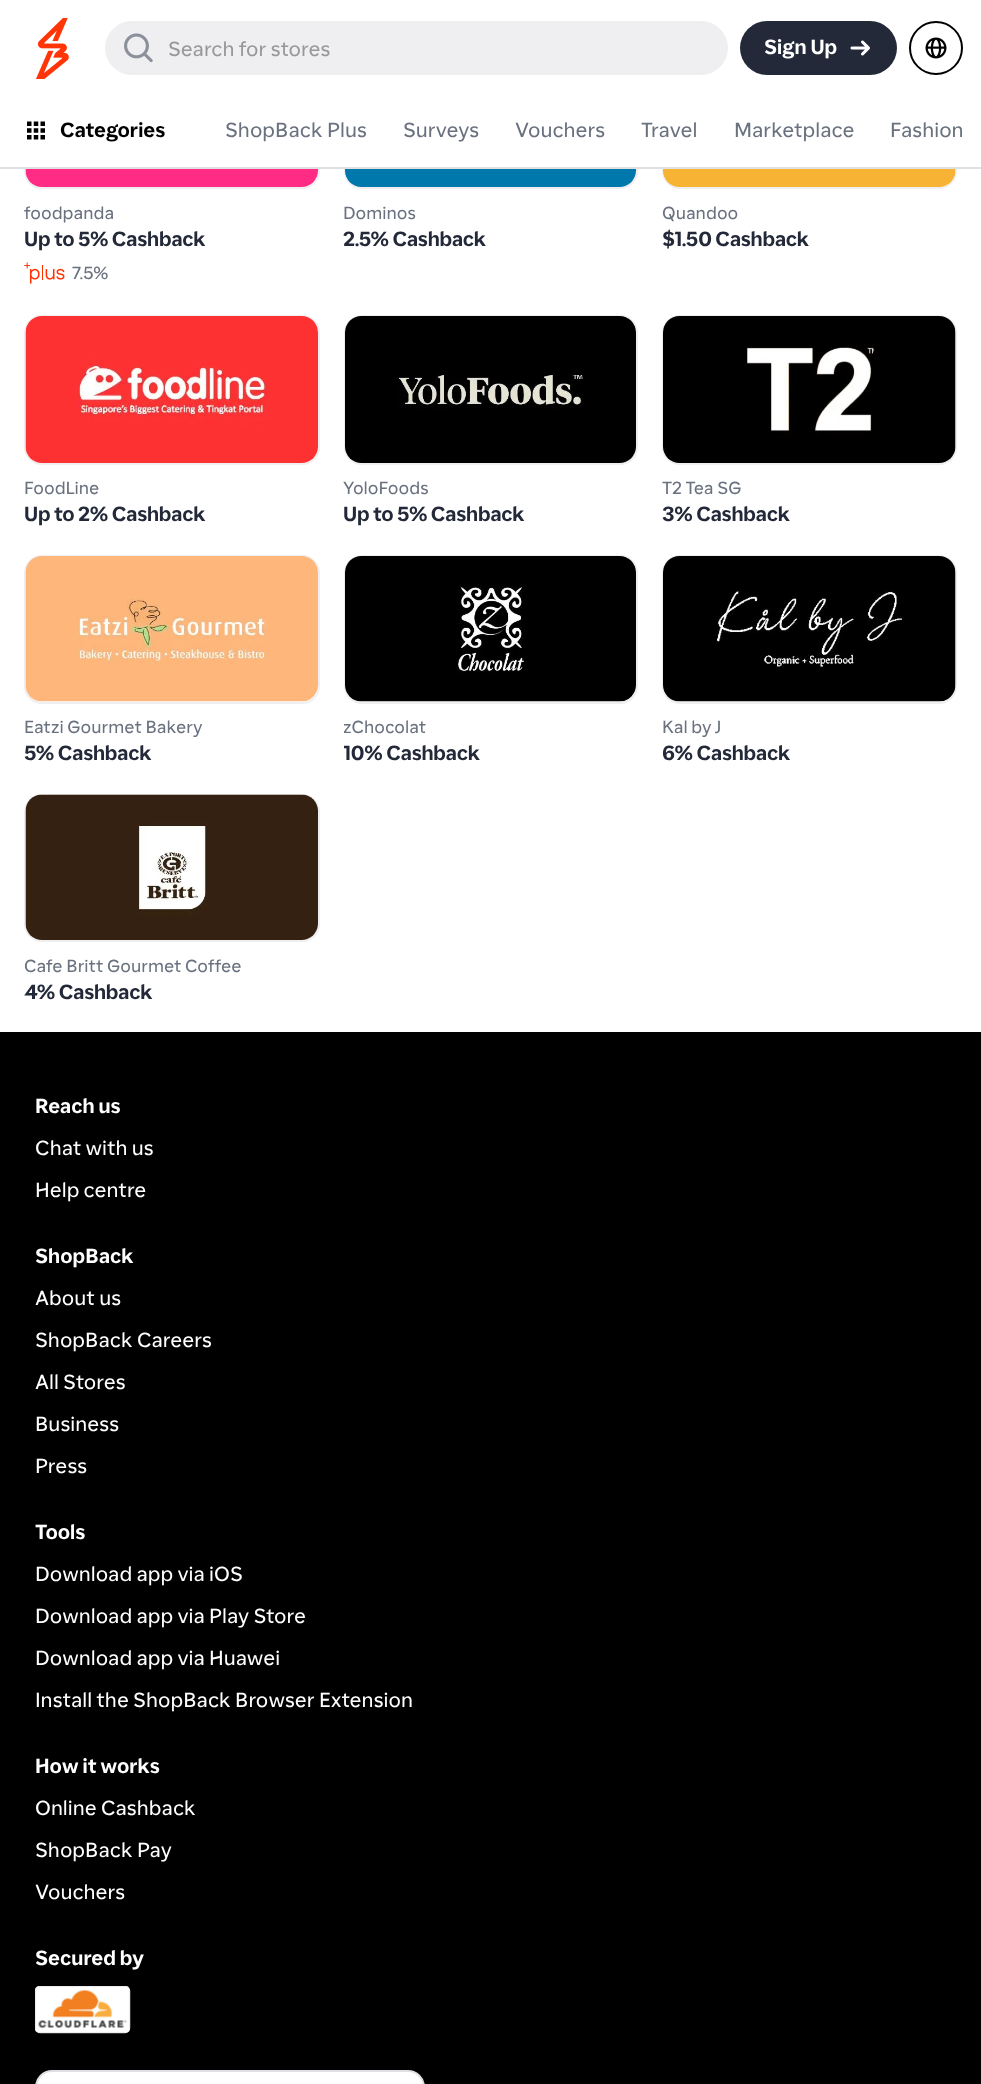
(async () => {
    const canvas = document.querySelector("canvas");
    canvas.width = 981;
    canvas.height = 2084;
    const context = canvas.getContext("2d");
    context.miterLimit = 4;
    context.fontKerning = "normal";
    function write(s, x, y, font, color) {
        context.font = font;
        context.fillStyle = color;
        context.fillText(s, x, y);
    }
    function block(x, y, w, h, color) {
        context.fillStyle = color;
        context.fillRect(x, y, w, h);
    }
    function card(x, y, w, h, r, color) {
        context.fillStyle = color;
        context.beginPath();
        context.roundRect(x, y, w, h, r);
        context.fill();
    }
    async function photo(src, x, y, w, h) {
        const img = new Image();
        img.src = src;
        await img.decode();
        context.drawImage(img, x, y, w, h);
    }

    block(0, 0, 981, 2084, "rgb(255, 255, 255)");
    context.beginPath();
    context.roundRect(25, 42, 294, 146, 17);
    context.strokeStyle = "rgb(239, 239, 241)";
    context.lineWidth = 2;
    context.stroke();
    context.beginPath();
    context.roundRect(345, 42, 292, 146, 17);
    context.stroke();
    context.beginPath();
    context.roundRect(663, 42, 293, 146, 17);
    context.stroke();
    block(24, 41, 933, 126, "rgb(255, 255, 255)");
    await photo("media/1.png", 36, 18, 33, 61);
    card(105, 21, 623, 54, 27, "rgb(239, 239, 241)");
    await photo("media/2.png", 124, 33, 29, 30);
    write("Search for stores", 168, 56, "21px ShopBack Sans", "rgb(152, 152, 153)");
    card(740, 21, 157, 54, 27, "rgb(35, 41, 56)");
    write("Sign Up", 764, 54, "bold 21px ShopBack Sans", "rgb(255, 255, 255)");
    await photo("media/3.png", 850, 40, 20, 16);
    context.beginPath();
    context.arc(936, 48, 26, 0, Math.PI * 2);
    context.strokeStyle = "rgb(0, 0, 0)";
    context.stroke();
    await photo("media/4.png", 925, 37, 22, 22);
    block(0, 167, 981, 2, "rgb(222, 224, 227)");
    await photo("media/5.png", 27, 121, 18, 19);
    write("Categories", 60, 137, "bold 21px ShopBack Sans", "rgb(0, 0, 0)");
    write("ShopBack Plus", 225, 137, "21px ShopBack Sans", "rgb(106, 113, 127)");
    write("Surveys", 403, 137, "21px ShopBack Sans", "rgb(106, 113, 127)");
    write("Vouchers", 515, 137, "21px ShopBack Sans", "rgb(106, 113, 127)");
    write("Travel", 641, 137, "21px ShopBack Sans", "rgb(106, 113, 127)");
    write("Marketplace", 734, 137, "21px ShopBack Sans", "rgb(106, 113, 127)");
    write("Fashion", 890, 137, "21px ShopBack Sans", "rgb(106, 113, 127)");
    await photo("media/6.png", 25, 169, 293, 18);
    write("foodpanda", 24, 219, "18px ShopBack Sans", "rgb(106, 113, 127)");
    context.letterSpacing = "-0.25px";
    write("Up to 5% Cashback", 24, 246, "bold 21px ShopBack Sans", "rgb(35, 41, 56)");
    await photo("media/7.png", 24, 262, 41, 22);
    context.letterSpacing = "0px";
    write("7.5%", 71, 279, "18px ShopBack Sans", "rgb(106, 113, 127)");
    await photo("media/8.png", 345, 169, 291, 18);
    write("Dominos", 343, 219, "18px ShopBack Sans", "rgb(106, 113, 127)");
    context.letterSpacing = "-0.25px";
    write("2.5% Cashback", 343, 246, "bold 21px ShopBack Sans", "rgb(35, 41, 56)");
    await photo("media/9.png", 663, 169, 293, 18);
    context.letterSpacing = "0px";
    write("Quandoo", 662, 219, "18px ShopBack Sans", "rgb(106, 113, 127)");
    context.letterSpacing = "-0.25px";
    write("$1.50 Cashback", 662, 246, "bold 21px ShopBack Sans", "rgb(35, 41, 56)");
    context.beginPath();
    context.roundRect(25, 316, 294, 148, 17);
    context.strokeStyle = "rgb(239, 239, 241)";
    context.stroke();
    await photo("media/10.png", 25, 316, 293, 147);
    context.letterSpacing = "0px";
    write("FoodLine", 24, 494, "18px ShopBack Sans", "rgb(106, 113, 127)");
    context.letterSpacing = "-0.25px";
    write("Up to 2% Cashback", 24, 521, "bold 21px ShopBack Sans", "rgb(35, 41, 56)");
    context.beginPath();
    context.roundRect(345, 316, 292, 148, 17);
    context.stroke();
    await photo("media/11.png", 345, 316, 291, 147);
    context.letterSpacing = "0px";
    write("YoloFoods", 343, 494, "18px ShopBack Sans", "rgb(106, 113, 127)");
    context.letterSpacing = "-0.25px";
    write("Up to 5% Cashback", 343, 521, "bold 21px ShopBack Sans", "rgb(35, 41, 56)");
    context.beginPath();
    context.roundRect(663, 316, 293, 148, 17);
    context.stroke();
    await photo("media/12.png", 663, 316, 293, 147);
    context.letterSpacing = "0px";
    write("T2 Tea SG", 662, 494, "18px ShopBack Sans", "rgb(106, 113, 127)");
    context.letterSpacing = "-0.25px";
    write("3% Cashback", 662, 521, "bold 21px ShopBack Sans", "rgb(35, 41, 56)");
    context.beginPath();
    context.roundRect(25, 556, 294, 147, 17);
    context.stroke();
    await photo("media/13.png", 25, 556, 293, 146);
    context.letterSpacing = "0px";
    write("Eatzi Gourmet Bakery", 24, 733, "18px ShopBack Sans", "rgb(106, 113, 127)");
    context.letterSpacing = "-0.25px";
    write("5% Cashback", 24, 760, "bold 21px ShopBack Sans", "rgb(35, 41, 56)");
    context.beginPath();
    context.roundRect(345, 556, 292, 147, 17);
    context.stroke();
    await photo("media/14.png", 345, 556, 291, 146);
    context.save();
    context.beginPath();
    context.rect(344, 716, 294, 24);
    context.clip();
    context.letterSpacing = "0px";
    write("zChocolat", 343, 733, "18px ShopBack Sans", "rgb(106, 113, 127)");
    context.restore();
    context.save();
    context.beginPath();
    context.rect(344, 740, 294, 30);
    context.clip();
    write("10% Cashback", 343, 760, "bold 21px ShopBack Sans", "rgb(35, 41, 56)");
    context.restore();
    context.beginPath();
    context.roundRect(663, 556, 293, 147, 17);
    context.stroke();
    await photo("media/15.png", 663, 556, 293, 146);
    context.letterSpacing = "0px";
    write("Kal by J", 662, 733, "18px ShopBack Sans", "rgb(106, 113, 127)");
    context.letterSpacing = "-0.25px";
    write("6% Cashback", 662, 760, "bold 21px ShopBack Sans", "rgb(35, 41, 56)");
    context.beginPath();
    context.roundRect(25, 795, 294, 146, 17);
    context.stroke();
    await photo("media/16.png", 25, 794, 293, 146);
    context.letterSpacing = "0px";
    write("Cafe Britt Gourmet Coffee", 24, 972, "18px ShopBack Sans", "rgb(106, 113, 127)");
    context.letterSpacing = "-0.25px";
    write("4% Cashback", 24, 999, "bold 21px ShopBack Sans", "rgb(35, 41, 56)");
    block(0, 1032, 981, 1052, "rgb(0, 0, 0)");
    context.letterSpacing = "0px";
    write("Reach us", 35, 1113, "bold 21px ShopBack Sans", "rgb(255, 255, 255)");
    write("Chat with us", 35, 1155, "21px ShopBack Sans", "rgb(255, 255, 255)");
    write("Help centre", 35, 1197, "21px ShopBack Sans", "rgb(255, 255, 255)");
    write("ShopBack", 35, 1263, "bold 21px ShopBack Sans", "rgb(255, 255, 255)");
    write("About us", 35, 1305, "21px ShopBack Sans", "rgb(255, 255, 255)");
    write("ShopBack Careers", 35, 1347, "21px ShopBack Sans", "rgb(255, 255, 255)");
    write("All Stores", 35, 1389, "21px ShopBack Sans", "rgb(255, 255, 255)");
    write("Business", 35, 1431, "21px ShopBack Sans", "rgb(255, 255, 255)");
    write("Press", 35, 1473, "21px ShopBack Sans", "rgb(255, 255, 255)");
    write("Tools", 35, 1539, "bold 21px ShopBack Sans", "rgb(255, 255, 255)");
    write("Download app via iOS", 35, 1581, "21px ShopBack Sans", "rgb(255, 255, 255)");
    write("Download app via Play Store", 35, 1623, "21px ShopBack Sans", "rgb(255, 255, 255)");
    write("Download app via Huawei", 35, 1665, "21px ShopBack Sans", "rgb(255, 255, 255)");
    write("Install the ShopBack Browser Extension", 35, 1707, "21px ShopBack Sans", "rgb(255, 255, 255)");
    write("How it works", 35, 1773, "bold 21px ShopBack Sans", "rgb(255, 255, 255)");
    write("Online Cashback", 35, 1815, "21px ShopBack Sans", "rgb(255, 255, 255)");
    write("ShopBack Pay", 35, 1857, "21px ShopBack Sans", "rgb(255, 255, 255)");
    write("Vouchers", 35, 1899, "21px ShopBack Sans", "rgb(255, 255, 255)");
    write("Secured by", 35, 1965, "bold 21px ShopBack Sans", "rgb(255, 255, 255)");
    await photo("media/17.png", 35, 1986, 96, 48);
    context.beginPath();
    context.roundRect(36, 2071, 388, 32, 17);
    context.fill();
    context.strokeStyle = "rgb(222, 224, 227)";
    context.stroke();
})();
